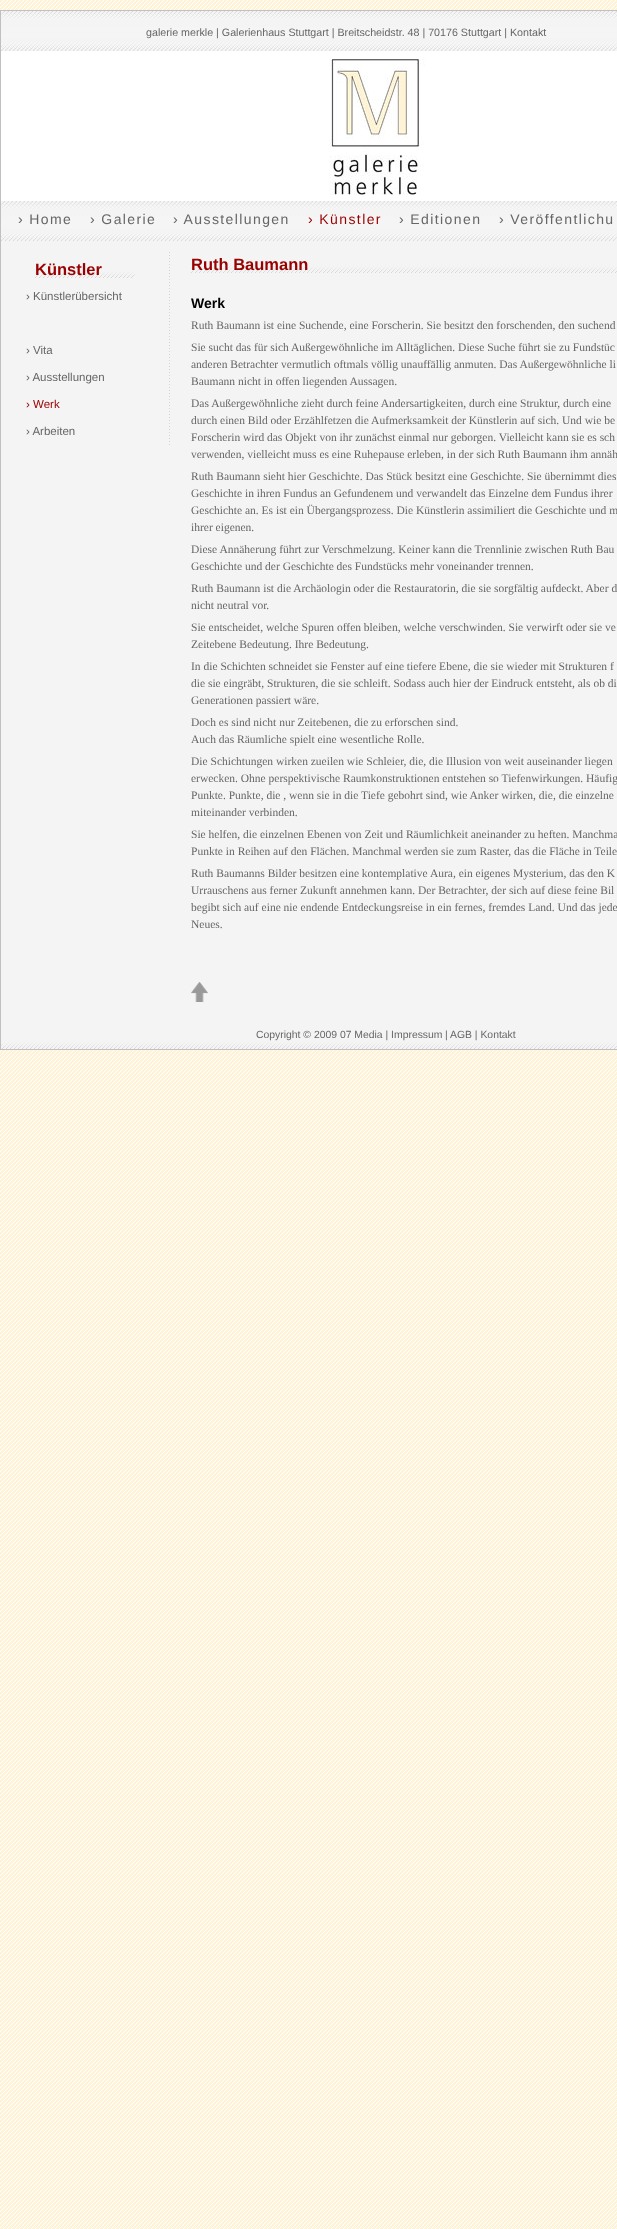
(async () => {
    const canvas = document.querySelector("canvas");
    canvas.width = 617;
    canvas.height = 2229;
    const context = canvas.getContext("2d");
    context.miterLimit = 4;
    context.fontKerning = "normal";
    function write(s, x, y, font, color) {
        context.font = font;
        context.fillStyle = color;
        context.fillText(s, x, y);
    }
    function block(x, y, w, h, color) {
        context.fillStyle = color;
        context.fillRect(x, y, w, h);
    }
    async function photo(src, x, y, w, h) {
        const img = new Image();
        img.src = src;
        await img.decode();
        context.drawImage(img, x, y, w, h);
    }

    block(0, 0, 617, 2229, "rgb(255, 255, 255)");
    await photo("media/1.png", 0, 0, 617, 2229);
    block(1, 241, 616, 801, "rgb(244, 244, 244)");
    context.strokeStyle = "rgb(192, 192, 192)";
    context.strokeRect(0.5, 10.5, 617, 1039);
    await photo("media/2.png", 1, 11, 616, 40);
    write("galerie merkle | Galerienhaus Stuttgart | Breitscheidstr. 48 | 70176 Stuttgart | Kontakt", 146, 36, "10.7px Liberation Sans", "rgb(102, 102, 102)");
    await photo("media/3.png", 1, 51, 616, 150);
    await photo("media/2.png", 1, 201, 616, 40);
    context.letterSpacing = "1.4px";
    write("› Home", 18, 224, "14px Liberation Sans", "rgb(102, 102, 102)");
    write("› Galerie", 90, 224, "14px Liberation Sans", "rgb(102, 102, 102)");
    write("› Ausstellungen", 173, 224, "14px Liberation Sans", "rgb(102, 102, 102)");
    write("› Künstler", 308, 224, "14px Liberation Sans", "rgb(153, 0, 0)");
    write("› Editionen", 399, 224, "14px Liberation Sans", "rgb(102, 102, 102)");
    write("› Veröffentlichu", 499, 224, "14px Liberation Sans", "rgb(102, 102, 102)");
    await photo("media/4.png", 169, 252, 1, 193);
    await photo("media/5.png", 35, 271, 100, 7);
    context.letterSpacing = "0px";
    write("Künstler", 35, 275, "bold 16.5px Liberation Sans", "rgb(153, 0, 0)");
    write("› Künstlerübersicht", 26, 300, "11.5px Liberation Sans", "rgb(102, 102, 102)");
    write("› Vita", 26, 354, "11.5px Liberation Sans", "rgb(102, 102, 102)");
    write("› Ausstellungen", 26, 381, "11.5px Liberation Sans", "rgb(102, 102, 102)");
    write("› Werk", 26, 408, "11.5px Liberation Sans", "rgb(153, 0, 0)");
    write("› Arbeiten", 26, 435, "11.5px Liberation Sans", "rgb(102, 102, 102)");
    await photo("media/6.png", 191, 266, 426, 7);
    write("Ruth Baumann", 191, 270, "bold 16.5px Liberation Sans", "rgb(153, 0, 0)");
    write("Werk", 191, 308, "bold 14px Liberation Sans", "rgb(0, 0, 0)");
    write("Ruth Baumann ist eine Suchende, eine Forscherin. Sie besitzt den forschenden, den suchend", 191, 329, "11.5px Liberation Serif", "rgb(102, 102, 102)");
    write("Sie sucht das für sich Außergewöhnliche im Alltäglichen. Diese Suche führt sie zu Fundstüc", 191, 351, "11.5px Liberation Serif", "rgb(102, 102, 102)");
    write("anderen Betrachter vermutlich oftmals völlig unauffällig anmuten. Das Außergewöhnliche li", 191, 368, "11.5px Liberation Serif", "rgb(102, 102, 102)");
    write("Baumann nicht in offen liegenden Aussagen.", 191, 385, "11.5px Liberation Serif", "rgb(102, 102, 102)");
    write("Das Außergewöhnliche zieht durch feine Andersartigkeiten, durch eine Struktur, durch eine", 191, 407, "11.5px Liberation Serif", "rgb(102, 102, 102)");
    write("durch einen Bild oder Erzählfetzen die Aufmerksamkeit der Künstlerin auf sich. Und wie be", 191, 424, "11.5px Liberation Serif", "rgb(102, 102, 102)");
    write("Forscherin wird das Objekt von ihr zunächst einmal nur geborgen. Vielleicht kann sie es sch", 191, 441, "11.5px Liberation Serif", "rgb(102, 102, 102)");
    write("verwenden, vielleicht muss es eine Ruhepause erleben, in der sich Ruth Baumann ihm annäh", 191, 458, "11.5px Liberation Serif", "rgb(102, 102, 102)");
    write("Ruth Baumann sieht hier Geschichte. Das Stück besitzt eine Geschichte. Sie übernimmt dies", 191, 480, "11.5px Liberation Serif", "rgb(102, 102, 102)");
    write("Geschichte in ihren Fundus an Gefundenem und verwandelt das Einzelne dem Fundus ihrer", 191, 497, "11.5px Liberation Serif", "rgb(102, 102, 102)");
    write("Geschichte an. Es ist ein Übergangsprozess. Die Künstlerin assimiliert die Geschichte und m", 191, 514, "11.5px Liberation Serif", "rgb(102, 102, 102)");
    write("ihrer eigenen.", 191, 531, "11.5px Liberation Serif", "rgb(102, 102, 102)");
    write("Diese Annäherung führt zur Verschmelzung. Keiner kann die Trennlinie zwischen Ruth Bau", 191, 553, "11.5px Liberation Serif", "rgb(102, 102, 102)");
    write("Geschichte und der Geschichte des Fundstücks mehr voneinander trennen.", 191, 570, "11.5px Liberation Serif", "rgb(102, 102, 102)");
    write("Ruth Baumann ist die Archäologin oder die Restauratorin, die sie sorgfältig aufdeckt. Aber d", 191, 592, "11.5px Liberation Serif", "rgb(102, 102, 102)");
    write("nicht neutral vor.", 191, 609, "11.5px Liberation Serif", "rgb(102, 102, 102)");
    write("Sie entscheidet, welche Spuren offen bleiben, welche verschwinden. Sie verwirft oder sie ve", 191, 631, "11.5px Liberation Serif", "rgb(102, 102, 102)");
    write("Zeitebene Bedeutung. Ihre Bedeutung.", 191, 648, "11.5px Liberation Serif", "rgb(102, 102, 102)");
    write("In die Schichten schneidet sie Fenster auf eine tiefere Ebene, die sie wieder mit Strukturen f", 191, 670, "11.5px Liberation Serif", "rgb(102, 102, 102)");
    write("die sie eingräbt, Strukturen, die sie schleift. Sodass auch hier der Eindruck entsteht, als ob di", 191, 687, "11.5px Liberation Serif", "rgb(102, 102, 102)");
    write("Generationen passiert wäre.", 191, 704, "11.5px Liberation Serif", "rgb(102, 102, 102)");
    write("Doch es sind nicht nur Zeitebenen, die zu erforschen sind.", 191, 726, "11.5px Liberation Serif", "rgb(102, 102, 102)");
    write("Auch das Räumliche spielt eine wesentliche Rolle.", 191, 743, "11.5px Liberation Serif", "rgb(102, 102, 102)");
    write("Die Schichtungen wirken zueilen wie Schleier, die, die Illusion von weit auseinander liegen", 191, 765, "11.5px Liberation Serif", "rgb(102, 102, 102)");
    write("erwecken. Ohne perspektivische Raumkonstruktionen entstehen so Tiefenwirkungen. Häufig", 191, 782, "11.5px Liberation Serif", "rgb(102, 102, 102)");
    write("Punkte. Punkte, die , wenn sie in die Tiefe gebohrt sind, wie Anker wirken, die, die einzelne", 191, 799, "11.5px Liberation Serif", "rgb(102, 102, 102)");
    write("miteinander verbinden.", 191, 816, "11.5px Liberation Serif", "rgb(102, 102, 102)");
    write("Sie helfen, die einzelnen Ebenen von Zeit und Räumlichkeit aneinander zu heften. Manchma", 191, 838, "11.5px Liberation Serif", "rgb(102, 102, 102)");
    write("Punkte in Reihen auf den Flächen. Manchmal werden sie zum Raster, das die Fläche in Teile", 191, 855, "11.5px Liberation Serif", "rgb(102, 102, 102)");
    write("Ruth Baumanns Bilder besitzen eine kontemplative Aura, ein eigenes Mysterium, das den K", 191, 877, "11.5px Liberation Serif", "rgb(102, 102, 102)");
    write("Urrauschens aus ferner Zukunft annehmen kann. Der Betrachter, der sich auf diese feine Bil", 191, 894, "11.5px Liberation Serif", "rgb(102, 102, 102)");
    write("begibt sich auf eine nie endende Entdeckungsreise in ein fernes, fremdes Land. Und das jede", 191, 911, "11.5px Liberation Serif", "rgb(102, 102, 102)");
    write("Neues.", 191, 928, "11.5px Liberation Serif", "rgb(102, 102, 102)");
    await photo("media/7.png", 191, 982, 17, 20);
    await photo("media/8.png", 1, 1042, 616, 7);
    write("Copyright © 2009 07 Media | Impressum", 256, 1038, "10.4px Liberation Sans", "rgb(102, 102, 102)");
    write("| AGB | Kontakt", 445, 1038, "10.4px Liberation Sans", "rgb(102, 102, 102)");
})();
